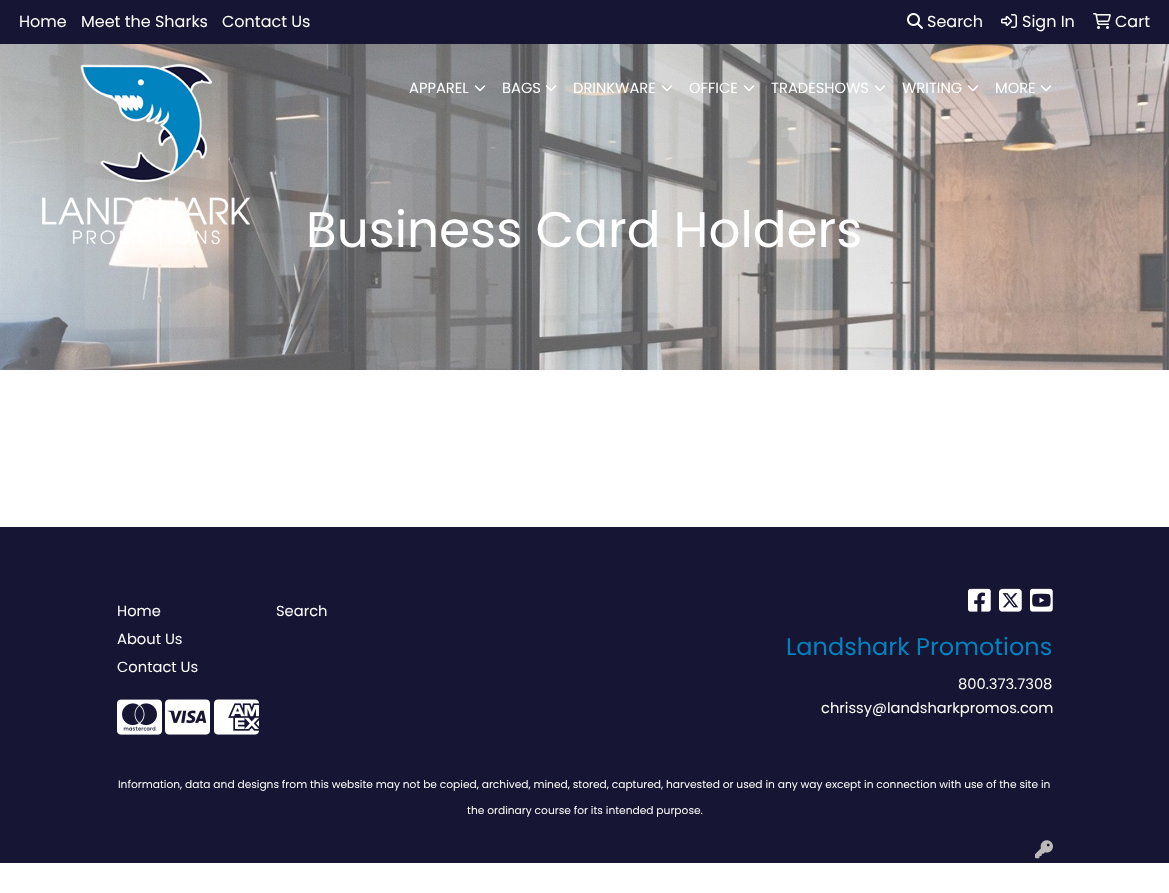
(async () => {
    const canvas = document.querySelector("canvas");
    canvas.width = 1169;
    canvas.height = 893;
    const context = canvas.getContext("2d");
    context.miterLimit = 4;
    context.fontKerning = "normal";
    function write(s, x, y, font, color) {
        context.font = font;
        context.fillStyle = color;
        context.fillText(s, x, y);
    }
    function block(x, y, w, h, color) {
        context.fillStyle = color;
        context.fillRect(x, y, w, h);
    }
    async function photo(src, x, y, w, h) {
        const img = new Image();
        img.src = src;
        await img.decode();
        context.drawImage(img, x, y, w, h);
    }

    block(0, 0, 1169, 893, "rgb(255, 255, 255)");
    block(0, 0, 1169, 44, "rgb(22, 21, 51)");
    write("Home", 19, 27, "16px Poppins", "rgb(255, 255, 255)");
    write("Meet the Sharks", 81, 27, "16px Poppins", "rgb(255, 255, 255)");
    write("Contact Us", 222, 27, "16px Poppins", "rgb(255, 255, 255)");
    await photo("media/1.png", 907, 13, 16, 16);
    write("Search", 927, 27, "16px Poppins", "rgb(255, 255, 255)");
    await photo("media/2.png", 1001, 14, 16, 14);
    write("Sign In", 1022, 27, "16px Poppins", "rgb(255, 255, 255)");
    await photo("media/3.png", 1093, 13, 18, 16);
    write("Cart", 1115, 27, "16px Poppins", "rgb(255, 255, 255)");
    await photo("media/12.png", 0, 44, 1169, 326);
    await photo("media/4.png", 42, 64, 208, 180);
    write("APPAREL", 409, 93, "14.7px Poppins", "rgb(255, 255, 255)");
    await photo("media/5.png", 474, 85, 12, 7);
    write("BAGS", 502, 93, "14.7px Poppins", "rgb(255, 255, 255)");
    await photo("media/6.png", 545, 85, 12, 6);
    write("DRINKWARE", 573, 93, "14.7px Poppins", "rgb(255, 255, 255)");
    await photo("media/7.png", 661, 85, 11, 7);
    write("OFFICE", 689, 93, "14.7px Poppins", "rgb(255, 255, 255)");
    await photo("media/8.png", 743, 85, 12, 7);
    write("TRADESHOWS", 771, 93, "14.7px Poppins", "rgb(255, 255, 255)");
    await photo("media/9.png", 875, 85, 10, 6);
    write("WRITING", 902, 93, "14.7px Poppins", "rgb(255, 255, 255)");
    await photo("media/10.png", 967, 85, 12, 7);
    write("MORE", 995, 93, "14.7px Poppins", "rgb(255, 255, 255)");
    await photo("media/11.png", 1040, 85, 12, 7);
    write("Business Card Holders", 306, 247, "50px Poppins", "rgb(255, 255, 255)");
    block(0, 527, 1169, 336, "rgb(22, 21, 51)");
    write("Home", 117, 616, "14.7px Poppins", "rgb(255, 255, 255)");
    write("About Us", 117, 644, "14.7px Poppins", "rgb(255, 255, 255)");
    write("Contact Us", 117, 672, "14.7px Poppins", "rgb(255, 255, 255)");
    write("Search", 276, 616, "14.7px Poppins", "rgb(255, 255, 255)");
    await photo("media/13.png", 117, 699, 45, 36);
    await photo("media/14.png", 165, 699, 45, 36);
    await photo("media/15.png", 214, 699, 45, 36);
    await photo("media/16.png", 968, 588, 23, 24);
    await photo("media/17.png", 999, 588, 23, 24);
    await photo("media/18.png", 1030, 588, 23, 24);
    write("Landshark Promotions", 786, 655, "24px Poppins", "rgb(0, 131, 191)");
    write("800.373.7308", 958, 689, "14.7px Poppins", "rgb(255, 255, 255)");
    write("chrissy@landsharkpromos.com", 821, 713, "14.7px Poppins", "rgb(255, 255, 255)");
    write("Information, data and designs from this website may not be copied, archived, mined, stored, captured, harvested or used in any way except in connection with use of the site in", 118, 788, "10.67px Poppins", "rgb(255, 255, 255)");
    write("the ordinary course for its intended purpose.", 467, 814, "10.67px Poppins", "rgb(255, 255, 255)");
    await photo("media/19.png", 1035, 840, 18, 19);
})();
